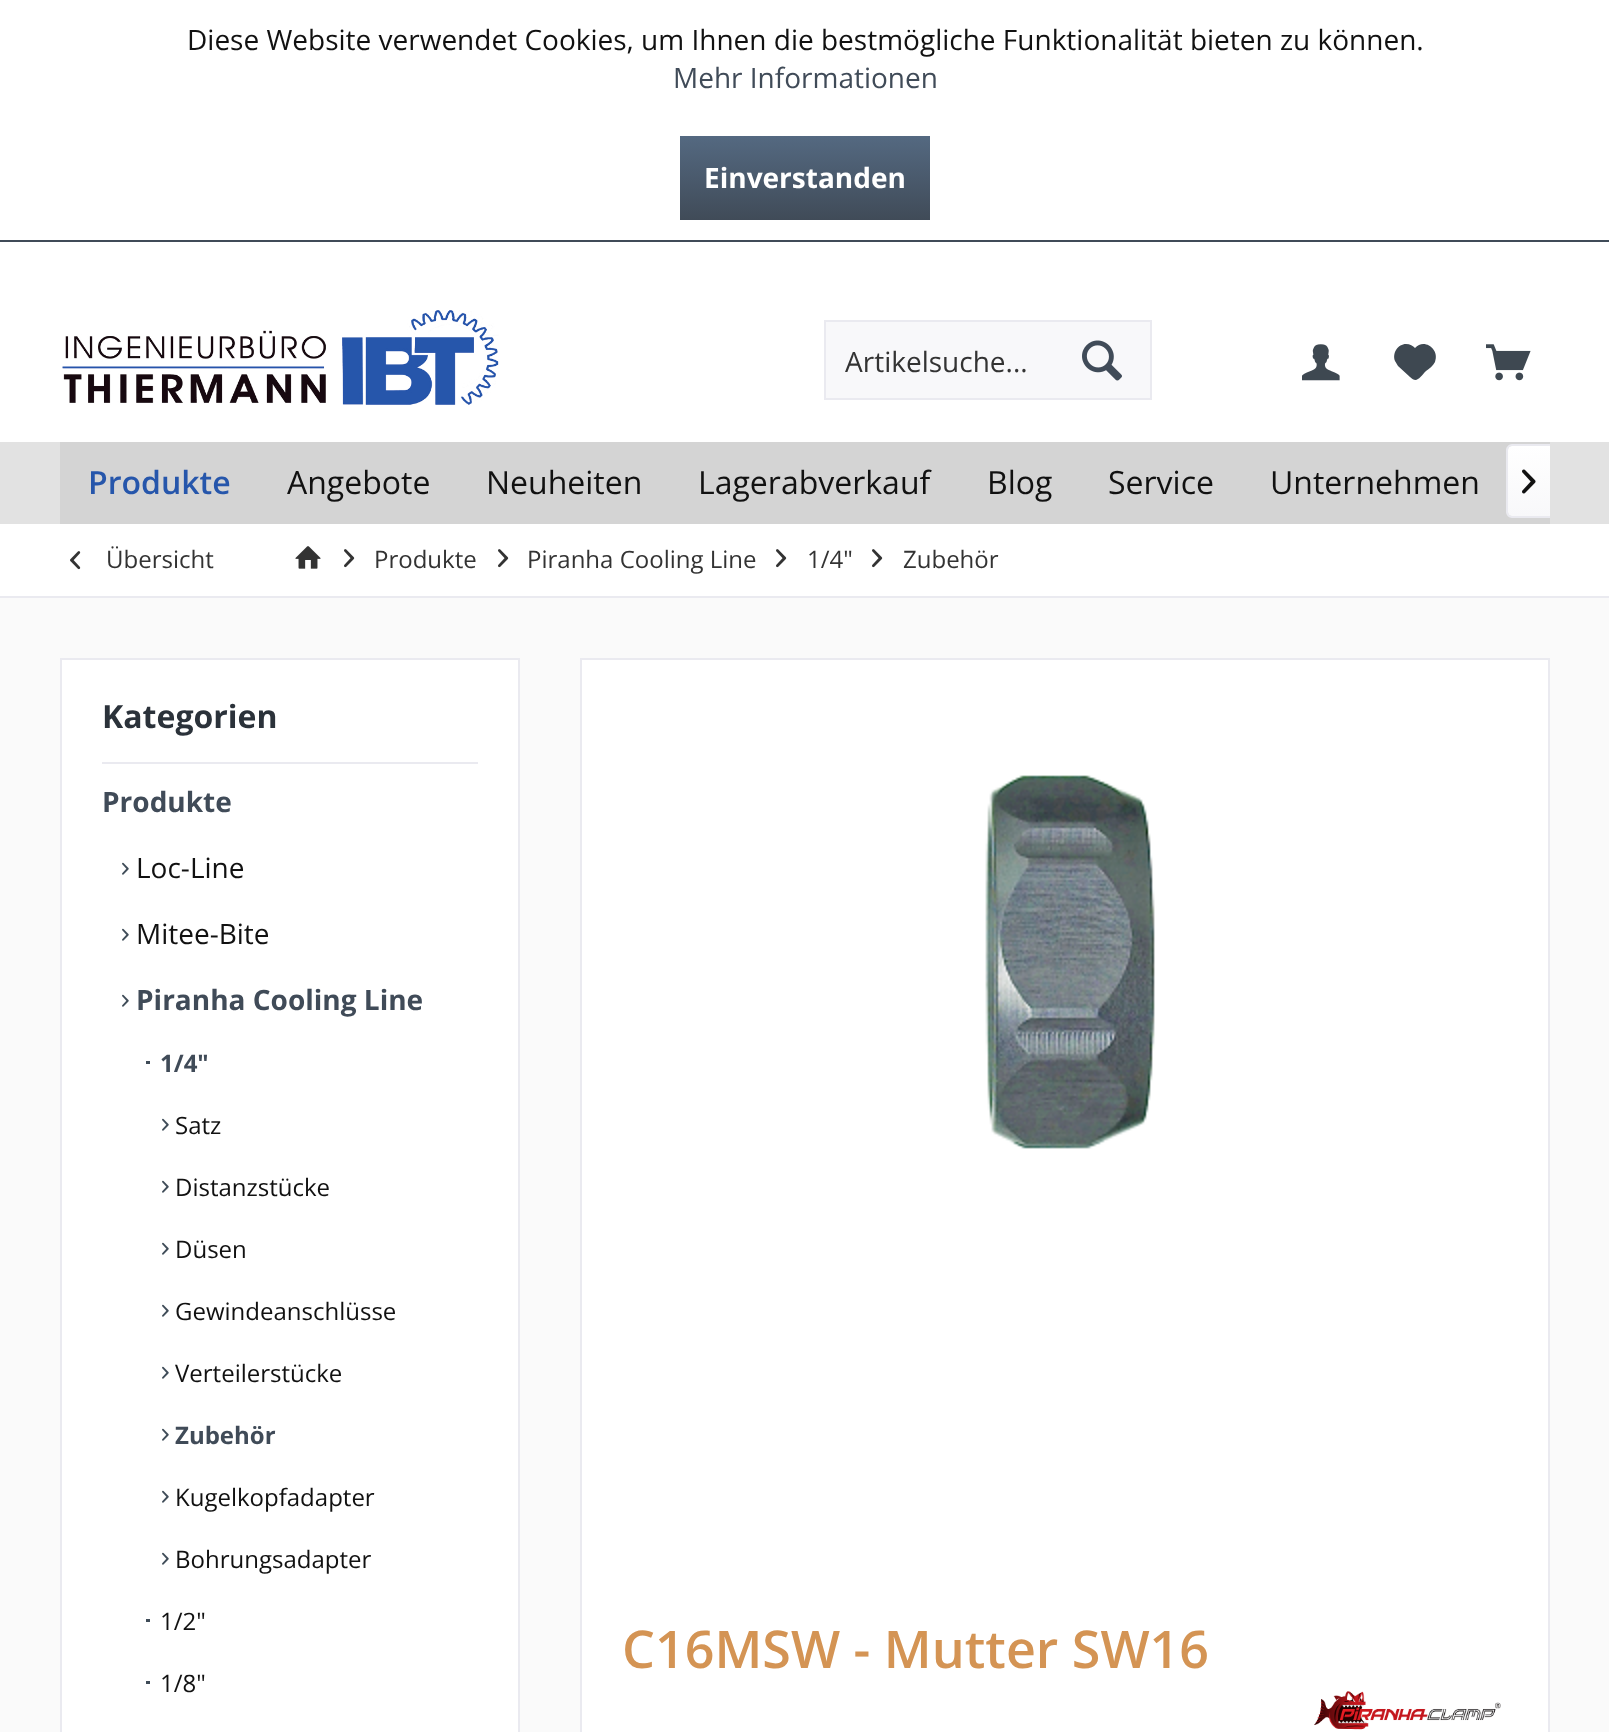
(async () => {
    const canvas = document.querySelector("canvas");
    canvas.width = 1609;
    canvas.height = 1732;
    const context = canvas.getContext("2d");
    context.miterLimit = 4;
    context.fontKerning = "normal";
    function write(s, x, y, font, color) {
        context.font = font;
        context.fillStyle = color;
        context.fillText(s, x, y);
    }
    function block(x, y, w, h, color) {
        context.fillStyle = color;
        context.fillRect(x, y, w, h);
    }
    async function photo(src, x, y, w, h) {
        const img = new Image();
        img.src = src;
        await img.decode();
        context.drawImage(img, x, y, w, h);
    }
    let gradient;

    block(0, 0, 1609, 1732, "rgb(250, 250, 250)");
    block(0, 0, 1609, 240, "rgb(255, 255, 255)");
    block(0, 240, 1609, 2, "rgb(64, 75, 88)");
    write("Diese Website verwendet Cookies, um Ihnen die bestmögliche Funktionalität bieten zu können.", 187, 50, "28px Open Sans", "rgb(17, 17, 17)");
    write("Mehr Informationen", 673, 88, "28px Open Sans", "rgb(64, 75, 88)");
    gradient = context.createLinearGradient(805, 136, 805, 220);
    gradient.addColorStop(0, "rgb(84, 105, 129)");
    gradient.addColorStop(1, "rgb(64, 75, 88)");
    context.fillStyle = gradient;
    context.fillRect(680, 136, 250, 84);
    write("Einverstanden", 704, 188, "bold 28px Open Sans", "rgb(255, 255, 255)");
    block(0, 242, 1609, 200, "rgb(255, 255, 255)");
    await photo("media/1.png", 62, 310, 437, 95);
    context.fillStyle = "rgb(248, 248, 250)";
    context.beginPath();
    context.rect(825, 321, 326, 78);
    context.fill();
    context.strokeStyle = "rgb(234, 234, 240)";
    context.lineWidth = 2;
    context.stroke();
    write("Artikelsuche...", 845, 372, "28px Open Sans", "rgb(51, 51, 51)");
    await photo("media/2.png", 1082, 340, 40, 41);
    await photo("media/3.png", 1302, 344, 38, 37);
    context.fillStyle = "rgb(62, 72, 81)";
    context.beginPath();
    context.moveTo(1406, 344);
    context.bezierCurveTo(1398, 344, 1392, 353, 1395, 361);
    context.lineTo(1398, 366);
    context.lineTo(1410, 377);
    context.bezierCurveTo(1417, 384, 1420, 377, 1426, 371);
    context.bezierCurveTo(1429, 369, 1433, 366, 1435, 362);
    context.bezierCurveTo(1440, 349, 1424, 338, 1415, 348);
    context.bezierCurveTo(1413, 346, 1410, 344, 1406, 344);
    context.closePath();
    context.fill();
    await photo("media/4.png", 1486, 344, 45, 37);
    block(0, 442, 1609, 82, "rgb(226, 226, 226)");
    block(60, 442, 1490, 82, "rgb(212, 212, 212)");
    write("Produkte", 88, 494, "600 32px Open Sans", "rgb(38, 86, 171)");
    write("Angebote", 287, 494, "32px Open Sans", "rgb(17, 17, 17)");
    write("Neuheiten", 486, 494, "32px Open Sans", "rgb(17, 17, 17)");
    write("Lagerabverkauf", 698, 494, "32px Open Sans", "rgb(17, 17, 17)");
    write("Blog", 987, 494, "32px Open Sans", "rgb(17, 17, 17)");
    write("Service", 1108, 494, "32px Open Sans", "rgb(17, 17, 17)");
    write("Unternehmen", 1270, 494, "32px Open Sans", "rgb(17, 17, 17)");
    gradient = context.createLinearGradient(1529, 446, 1529, 516);
    gradient.addColorStop(0, "rgb(255, 255, 255)");
    gradient.addColorStop(1, "rgb(248, 248, 250)");
    context.fillStyle = gradient;
    context.beginPath();
    context.roundRect(1508, 446, 42, 70, [4, 0, 0, 4]);
    context.fill();
    context.fillStyle = "rgb(234, 234, 240)";
    context.beginPath();
    context.moveTo(1512, 444);
    context.lineTo(1550, 444);
    context.lineTo(1550, 518);
    context.lineTo(1512, 518);
    context.bezierCurveTo(1509, 518, 1506, 515, 1506, 512);
    context.lineTo(1506, 450);
    context.bezierCurveTo(1506, 447, 1509, 444, 1512, 444);
    context.closePath();
    context.moveTo(1512, 446);
    context.lineTo(1550, 446);
    context.lineTo(1550, 516);
    context.lineTo(1512, 516);
    context.bezierCurveTo(1510, 516, 1508, 514, 1508, 512);
    context.lineTo(1508, 450);
    context.bezierCurveTo(1508, 448, 1510, 446, 1512, 446);
    context.closePath();
    context.fill("evenodd");
    await photo("media/5.png", 1522, 469, 14, 25);
    block(0, 524, 1609, 72, "rgb(255, 255, 255)");
    block(0, 596, 1609, 2, "rgb(234, 234, 240)");
    await photo("media/6.png", 70, 551, 11, 19);
    write("Übersicht", 106, 568, "24px Open Sans", "rgb(51, 51, 51)");
    await photo("media/7.png", 295, 546, 26, 23);
    await photo("media/8.png", 344, 549, 11, 19);
    write("Produkte", 374, 568, "24px Open Sans", "rgb(51, 51, 51)");
    await photo("media/8.png", 498, 549, 11, 19);
    write("Piranha Cooling Line", 527, 568, "24px Open Sans", "rgb(51, 51, 51)");
    await photo("media/8.png", 776, 549, 11, 19);
    write("1/4\"", 807, 568, "24px Open Sans", "rgb(51, 51, 51)");
    await photo("media/8.png", 872, 549, 11, 19);
    write("Zubehör", 903, 568, "24px Open Sans", "rgb(51, 51, 51)");
    block(60, 658, 460, 2, "rgb(234, 234, 240)");
    block(518, 658, 2, 110, "rgb(234, 234, 240)");
    block(60, 658, 2, 110, "rgb(234, 234, 240)");
    block(62, 660, 456, 1072, "rgb(255, 255, 255)");
    write("Kategorien", 102, 728, "bold 32px Open Sans", "rgb(43, 50, 58)");
    block(102, 762, 376, 2, "rgb(234, 234, 240)");
    block(518, 768, 2, 964, "rgb(234, 234, 240)");
    block(60, 768, 2, 964, "rgb(234, 234, 240)");
    write("Produkte", 102, 812, "bold 28px Open Sans", "rgb(64, 75, 88)");
    await photo("media/9.png", 122, 862, 7, 13);
    write("Loc-Line", 136, 878, "28px Open Sans", "rgb(17, 17, 17)");
    await photo("media/9.png", 122, 928, 7, 13);
    write("Mitee-Bite", 136, 944, "28px Open Sans", "rgb(17, 17, 17)");
    await photo("media/9.png", 122, 994, 7, 13);
    write("Piranha Cooling Line", 136, 1010, "bold 28px Open Sans", "rgb(64, 75, 88)");
    block(146, 1061, 4, 3, "rgb(63, 76, 88)");
    write("1/4\"", 160, 1072, "bold 24px Open Sans", "rgb(64, 75, 88)");
    await photo("media/9.png", 162, 1118, 7, 13);
    write("Satz", 175, 1134, "24px Open Sans", "rgb(17, 17, 17)");
    await photo("media/9.png", 162, 1180, 7, 13);
    write("Distanzstücke", 175, 1196, "24px Open Sans", "rgb(17, 17, 17)");
    await photo("media/9.png", 162, 1242, 7, 13);
    write("Düsen", 175, 1258, "24px Open Sans", "rgb(17, 17, 17)");
    await photo("media/9.png", 162, 1304, 7, 13);
    write("Gewindeanschlüsse", 175, 1320, "24px Open Sans", "rgb(17, 17, 17)");
    await photo("media/9.png", 162, 1366, 7, 13);
    write("Verteilerstücke", 175, 1382, "24px Open Sans", "rgb(17, 17, 17)");
    await photo("media/9.png", 162, 1428, 7, 13);
    write("Zubehör", 175, 1444, "bold 24px Open Sans", "rgb(64, 75, 88)");
    await photo("media/9.png", 162, 1490, 7, 13);
    write("Kugelkopfadapter", 175, 1506, "24px Open Sans", "rgb(17, 17, 17)");
    await photo("media/9.png", 162, 1552, 7, 13);
    write("Bohrungsadapter", 175, 1568, "24px Open Sans", "rgb(17, 17, 17)");
    block(146, 1619, 4, 3, "rgb(63, 76, 88)");
    write("1/2\"", 160, 1630, "24px Open Sans", "rgb(17, 17, 17)");
    block(146, 1681, 4, 3, "rgb(63, 76, 88)");
    write("1/8\"", 160, 1692, "24px Open Sans", "rgb(17, 17, 17)");
    block(582, 660, 966, 1072, "rgb(255, 255, 255)");
    block(580, 658, 970, 2, "rgb(234, 234, 240)");
    block(1548, 658, 2, 1074, "rgb(234, 234, 240)");
    block(580, 658, 2, 1074, "rgb(234, 234, 240)");
    await photo("media/10.png", 985, 775, 170, 374);
    write("C16MSW - Mutter SW16", 622, 1668, "600 52px Open Sans", "rgb(212, 148, 84)");
    await photo("media/11.png", 1314, 1691, 187, 39);
})();
